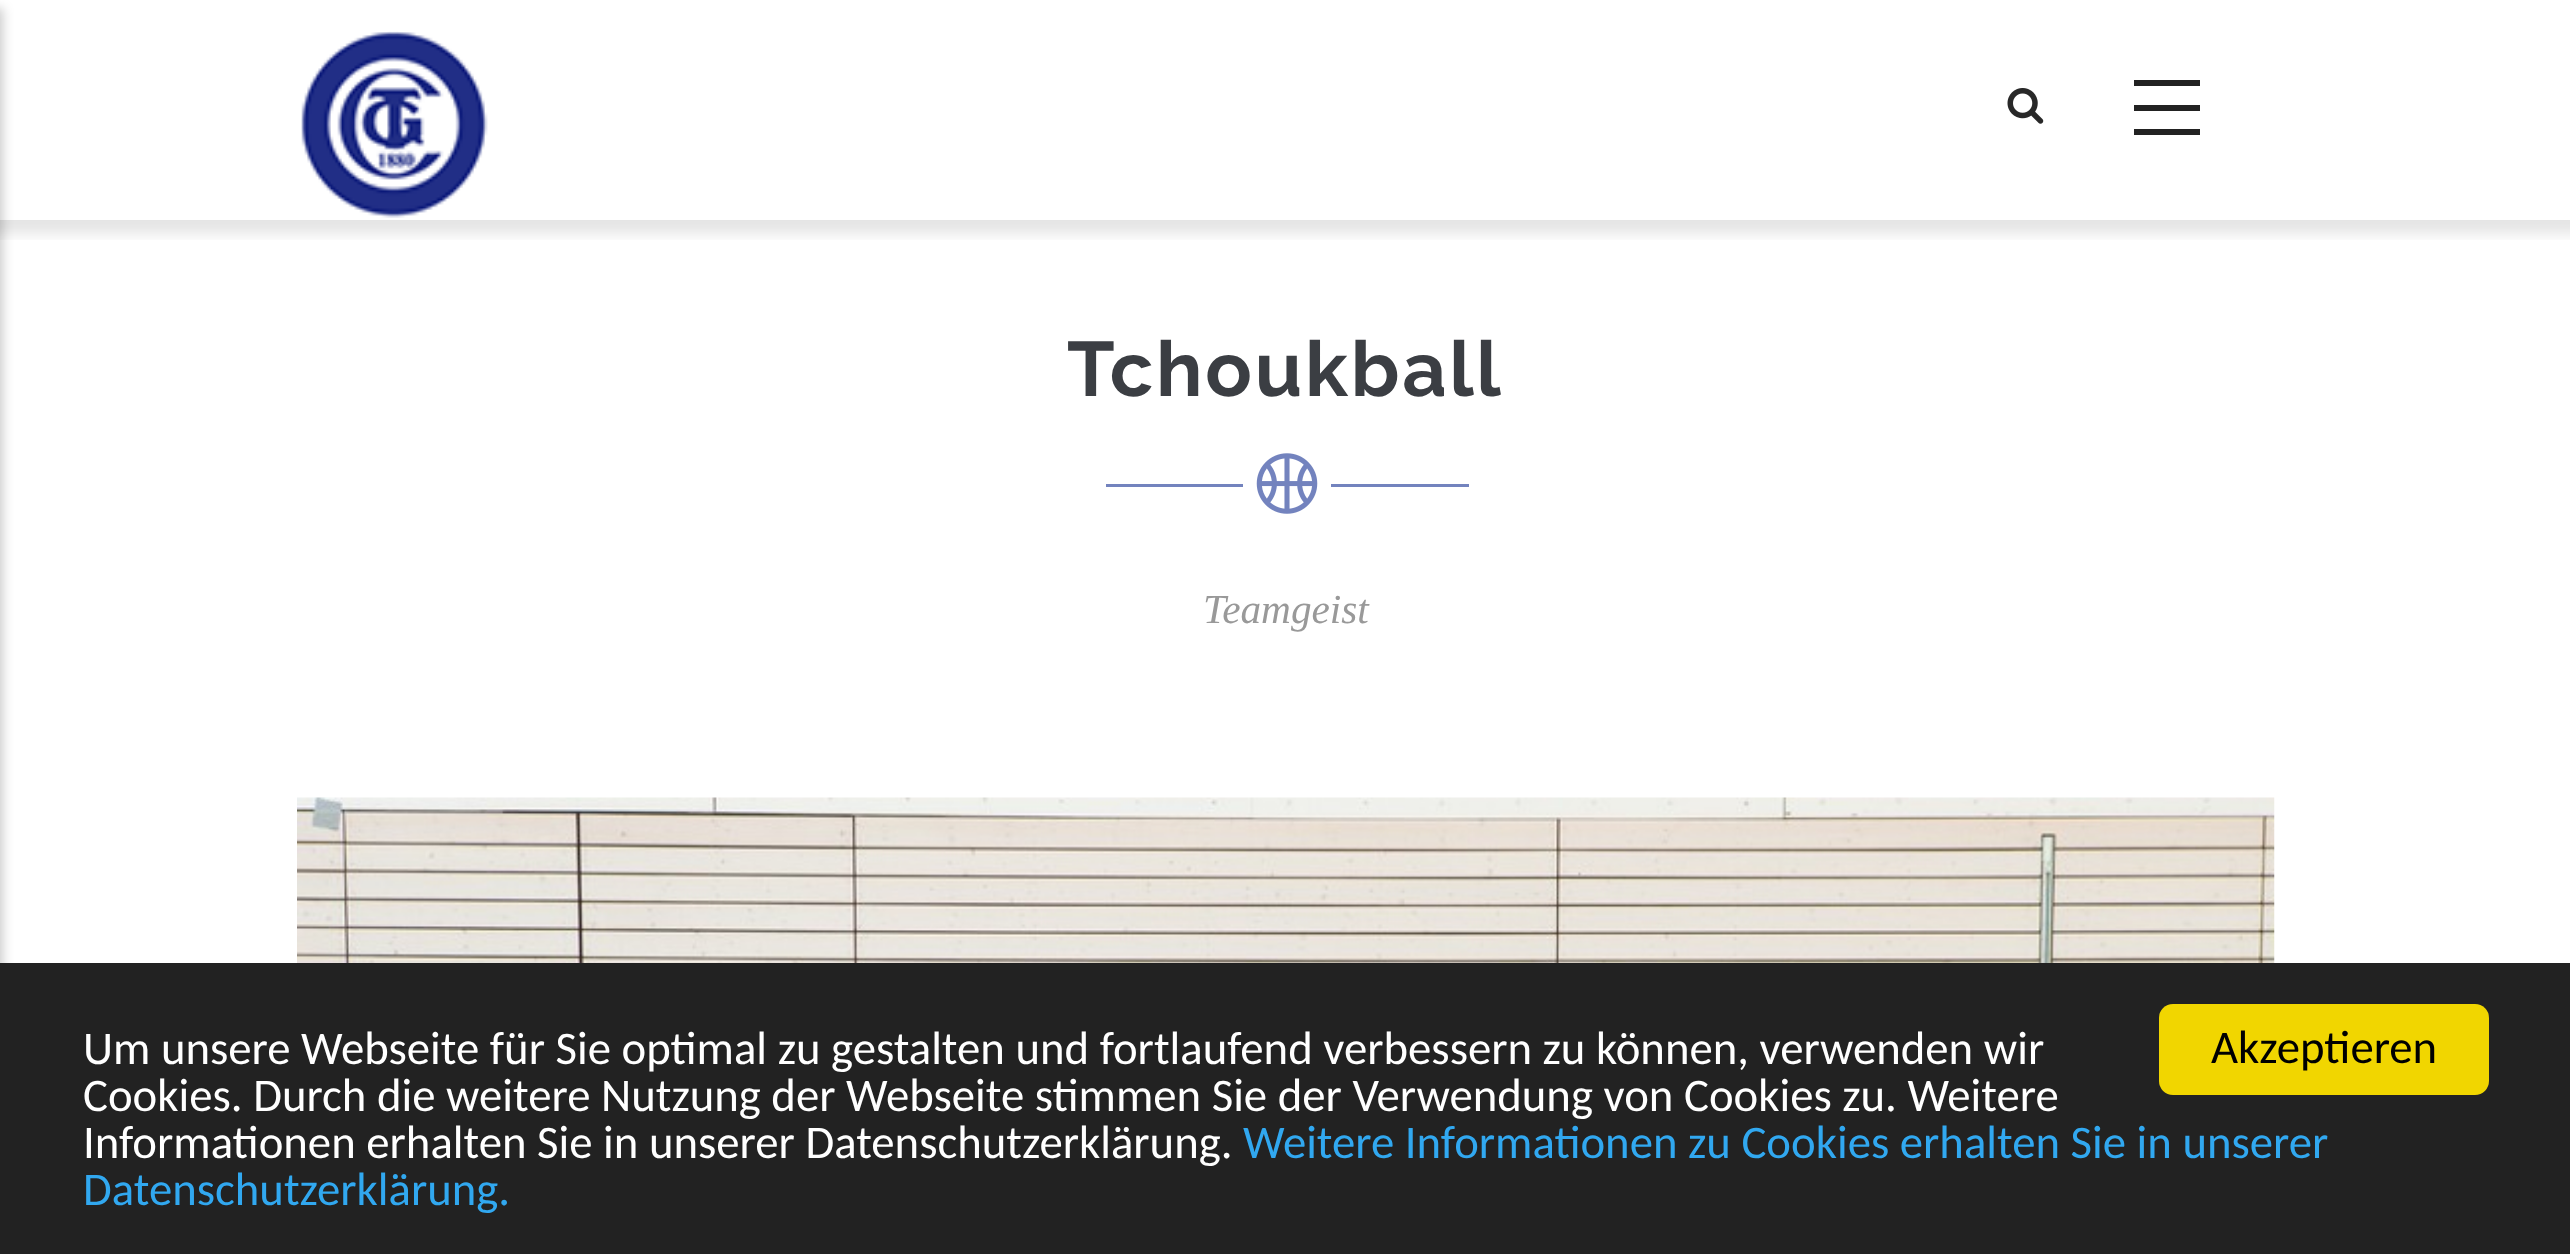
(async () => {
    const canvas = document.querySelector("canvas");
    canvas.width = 2570;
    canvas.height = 1254;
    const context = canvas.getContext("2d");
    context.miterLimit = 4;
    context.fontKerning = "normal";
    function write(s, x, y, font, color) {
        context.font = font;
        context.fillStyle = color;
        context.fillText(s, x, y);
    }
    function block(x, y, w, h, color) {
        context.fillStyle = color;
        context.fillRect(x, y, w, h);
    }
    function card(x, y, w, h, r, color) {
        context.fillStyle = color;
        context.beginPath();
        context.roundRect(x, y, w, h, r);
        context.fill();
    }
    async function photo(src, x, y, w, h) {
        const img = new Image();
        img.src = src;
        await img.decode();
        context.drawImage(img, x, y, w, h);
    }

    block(0, 0, 2570, 1254, "rgb(255, 255, 255)");
    context.save();
    context.beginPath();
    context.rect(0, 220, 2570, 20);
    context.clip();
    context.fillStyle = "rgba(0, 0, 0, 0.1)";
    context.filter = "blur(7px)";
    context.beginPath();
    context.rect(-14, -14, 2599, 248);
    context.fill();
    context.filter = "none";
    context.restore();
    context.fillStyle = "rgba(0, 0, 0, 0.2)";
    context.filter = "blur(5.5px)";
    context.beginPath();
    context.rect(-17, 8, 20, 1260);
    context.fill();
    context.filter = "none";
    await photo("media/1.png", 2007, 88, 37, 36);
    block(2134, 80, 66, 6, "rgb(34, 34, 34)");
    block(2134, 105, 66, 6, "rgb(34, 34, 34)");
    block(2134, 129, 66, 6, "rgb(34, 34, 34)");
    await photo("media/2.png", 301, 31, 187, 187);
    context.letterSpacing = "2.75px";
    write("Tchoukball", 1067, 396, "bold 77px Raleway", "rgb(59, 62, 67)");
    block(1106, 484, 137, 3, "rgb(115, 131, 190)");
    await photo("media/3.png", 1256, 453, 62, 61);
    block(1331, 484, 138, 3, "rgb(115, 131, 190)");
    context.letterSpacing = "0px";
    write("Teamgeist", 1203, 623, "italic 41.25px Liberation Serif", "rgb(153, 153, 153)");
    await photo("media/4.png", 297, 797, 1978, 166);
    block(0, 963, 2570, 291, "rgb(34, 34, 34)");
    card(2159, 1004, 330, 91, 14, "rgb(241, 214, 0)");
    write("Akzeptieren", 2211, 1063, "46.75px Carlito", "rgb(0, 0, 0)");
    write("Um unsere Webseite für Sie optimal zu gestalten und fortlaufend verbessern zu können, verwenden wir", 83, 1064, "46.75px Carlito", "rgb(255, 255, 255)");
    write("Cookies. Durch die weitere Nutzung der Webseite stimmen Sie der Verwendung von Cookies zu. Weitere", 83, 1111, "46.75px Carlito", "rgb(255, 255, 255)");
    write("Informationen erhalten Sie in unserer Datenschutzerklärung.", 83, 1158, "46.75px Carlito", "rgb(255, 255, 255)");
    write("Weitere Informationen zu Cookies erhalten Sie in unserer", 1243, 1158, "46.75px Carlito", "rgb(49, 168, 240)");
    write("Datenschutzerklärung.", 83, 1205, "46.75px Carlito", "rgb(49, 168, 240)");
})();
